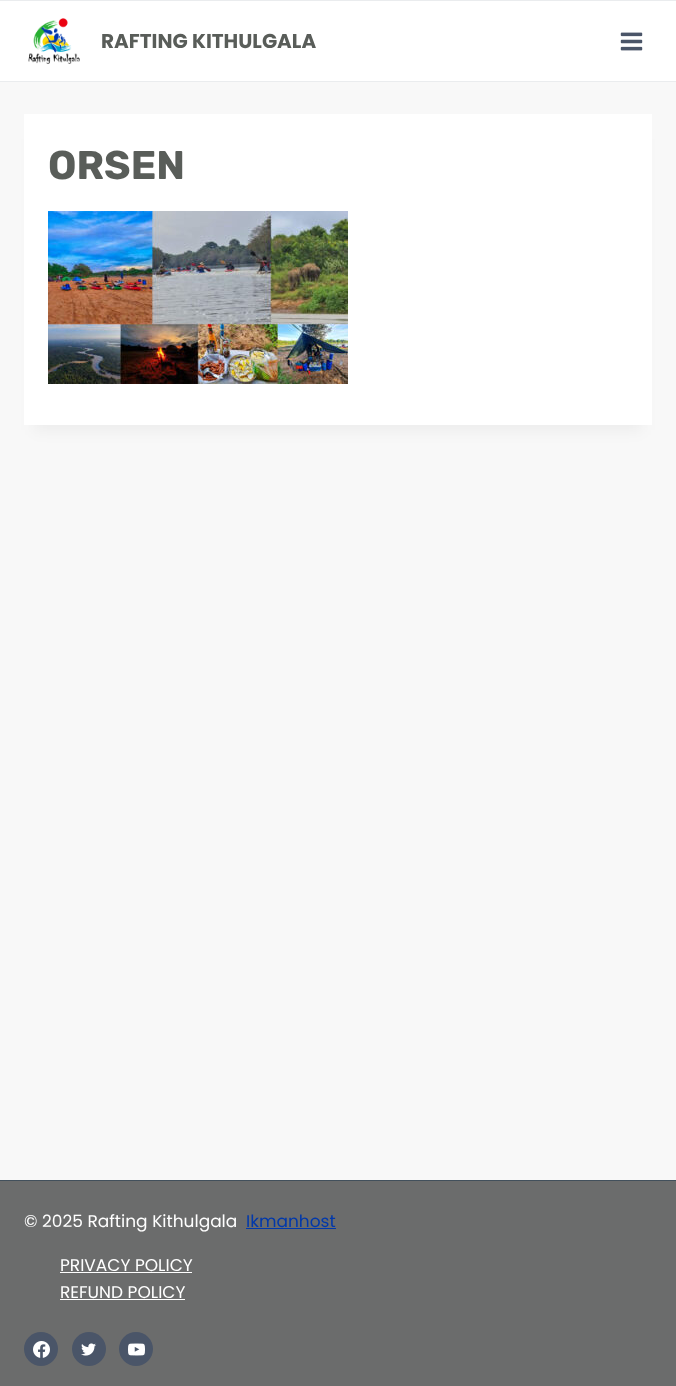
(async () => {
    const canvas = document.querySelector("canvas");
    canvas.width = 676;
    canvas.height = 1386;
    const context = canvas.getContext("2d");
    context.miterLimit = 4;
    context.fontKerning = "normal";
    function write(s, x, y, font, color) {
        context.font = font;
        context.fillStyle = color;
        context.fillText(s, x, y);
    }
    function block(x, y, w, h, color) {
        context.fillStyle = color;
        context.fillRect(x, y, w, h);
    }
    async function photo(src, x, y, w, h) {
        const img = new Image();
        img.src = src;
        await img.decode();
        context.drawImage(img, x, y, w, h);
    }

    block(0, 0, 676, 1386, "rgb(248, 248, 248)");
    block(0, 1, 676, 80, "rgb(255, 255, 255)");
    block(0, 0, 676, 1, "rgb(234, 236, 238)");
    block(0, 81, 676, 1, "rgb(234, 236, 238)");
    await photo("media/1.png", 28, 18, 52, 46);
    write("RAFTING KITHULGALA", 101, 48, "bold 20px Poppins", "rgb(89, 93, 89)");
    await photo("media/2.png", 620, 32, 23, 19);
    context.fillStyle = "rgba(0, 0, 0, 0.05)";
    context.filter = "blur(7.5px)";
    context.beginPath();
    context.rect(34, 139, 608, 291);
    context.fill();
    context.filter = "none";
    block(24, 114, 628, 311, "rgb(255, 255, 255)");
    write("ORSEN", 48, 179, "bold 40px Rubik", "rgb(89, 93, 89)");
    await photo("media/3.png", 48, 211, 300, 173);
    block(0, 1181, 676, 205, "rgb(107, 108, 108)");
    block(0, 1180, 676, 1, "rgb(66, 80, 92)");
    write("© 2025 Rafting Kithulgala", 24, 1227, "17px Poppins", "rgb(255, 255, 255)");
    write("Ikmanhost", 246, 1227, "17px Poppins", "rgb(1, 56, 171)");
    block(246, 1228, 90, 1, "rgb(1, 56, 171)");
    write("PRIVACY POLICY", 60, 1271, "17px Poppins", "rgb(255, 255, 255)");
    block(60, 1272, 132, 1, "rgb(255, 255, 255)");
    write("REFUND POLICY", 60, 1298, "17px Poppins", "rgb(255, 255, 255)");
    block(60, 1299, 125, 1, "rgb(255, 255, 255)");
    context.fillStyle = "rgb(74, 85, 104)";
    context.beginPath();
    context.arc(41, 1349, 17, 0, Math.PI * 2);
    context.fill();
    await photo("media/4.png", 33, 1341, 17, 17);
    context.beginPath();
    context.arc(89, 1349, 17, 0, Math.PI * 2);
    context.fill();
    await photo("media/5.png", 81, 1343, 15, 13);
    context.beginPath();
    context.arc(136, 1349, 17, 0, Math.PI * 2);
    context.fill();
    await photo("media/6.png", 128, 1343, 17, 13);
})();
